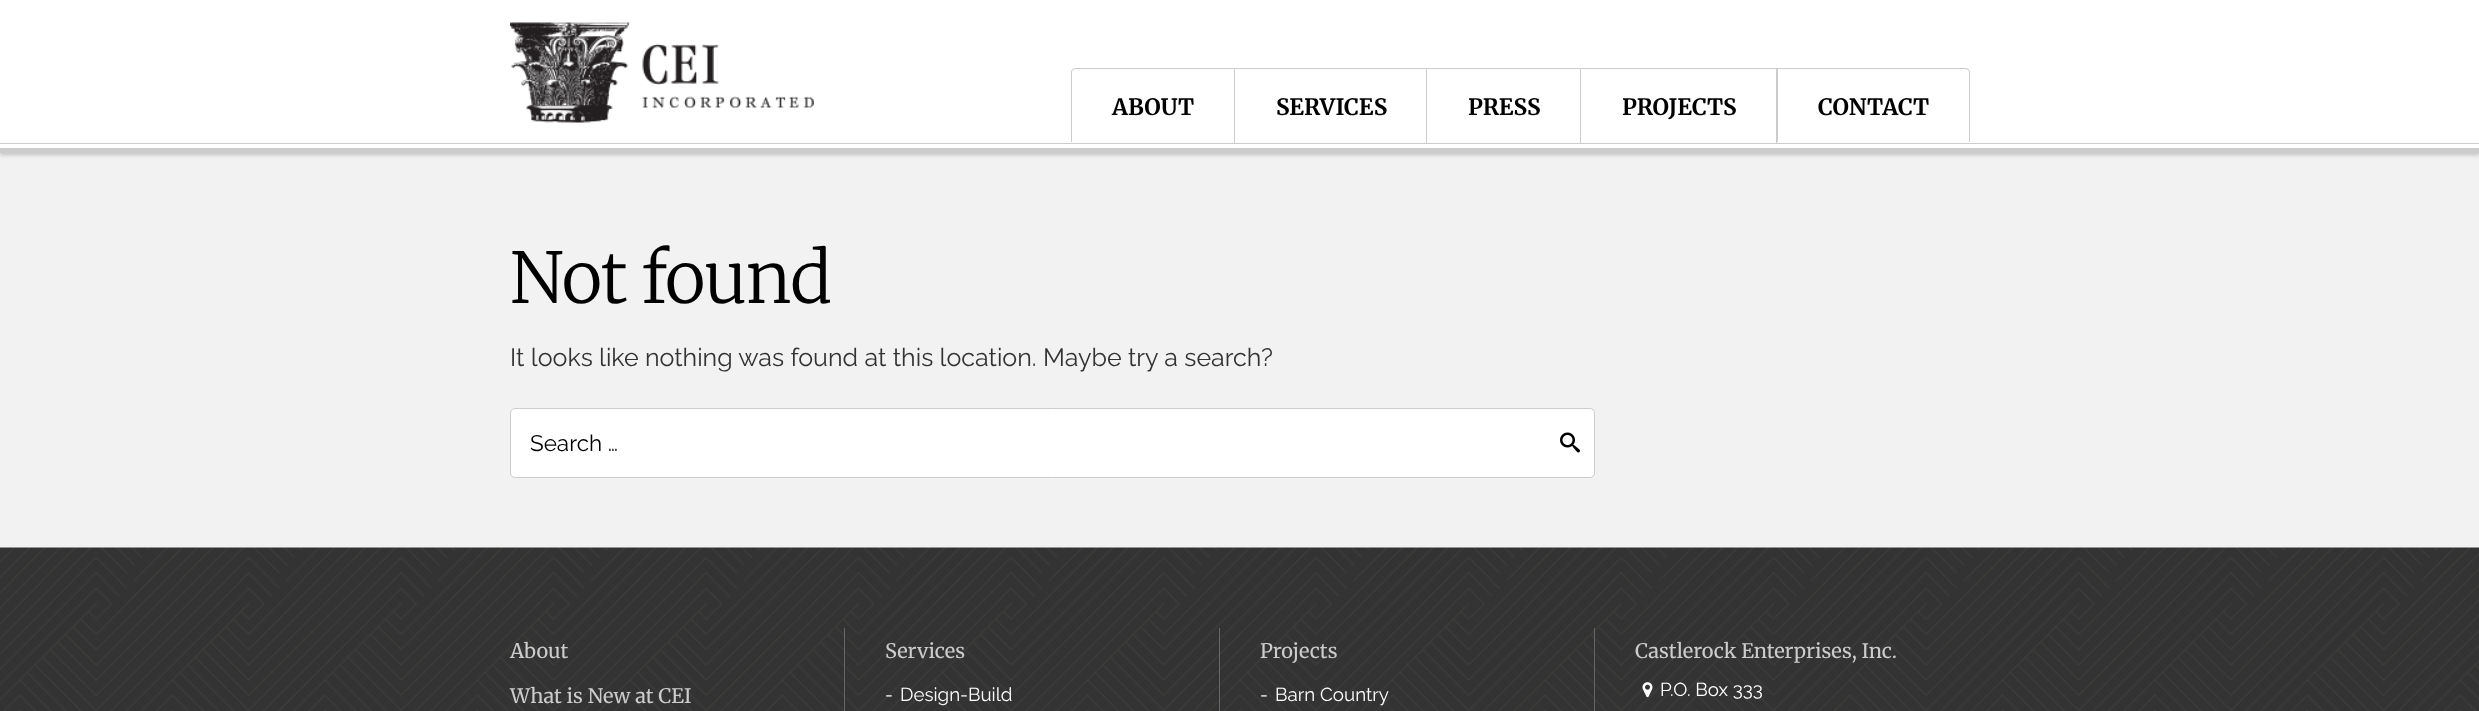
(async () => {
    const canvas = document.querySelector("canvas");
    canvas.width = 2479;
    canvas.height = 711;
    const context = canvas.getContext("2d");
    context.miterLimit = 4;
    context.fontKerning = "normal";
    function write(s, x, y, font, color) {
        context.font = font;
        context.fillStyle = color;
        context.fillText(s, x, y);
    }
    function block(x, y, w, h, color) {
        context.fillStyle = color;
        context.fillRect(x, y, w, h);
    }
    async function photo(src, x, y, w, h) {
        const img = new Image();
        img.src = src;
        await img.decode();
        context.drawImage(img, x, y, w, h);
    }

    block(0, 0, 2479, 711, "rgb(242, 242, 242)");
    context.fillStyle = "rgba(0, 0, 0, 0.2)";
    context.filter = "blur(2px)";
    context.beginPath();
    context.rect(0, 3, 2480, 152);
    context.fill();
    context.filter = "none";
    block(0, 0, 2479, 148, "rgb(255, 255, 255)");
    block(0, 148, 2479, 5, "rgb(204, 204, 204)");
    await photo("media/1.png", 510, 22, 304, 101);
    block(0, 143, 2479, 1, "rgb(204, 204, 204)");
    context.beginPath();
    context.moveTo(1076, 68);
    context.lineTo(1235, 68);
    context.lineTo(1235, 142);
    context.lineTo(1071, 142);
    context.lineTo(1071, 72);
    context.bezierCurveTo(1071, 70, 1073, 68, 1076, 68);
    context.closePath();
    context.moveTo(1076, 69);
    context.lineTo(1234, 69);
    context.lineTo(1234, 142);
    context.lineTo(1072, 142);
    context.lineTo(1072, 72);
    context.bezierCurveTo(1072, 70, 1074, 69, 1076, 69);
    context.closePath();
    context.fill("evenodd");
    write("ABOUT", 1112, 115, "bold 22.5px Merriweather", "rgb(0, 0, 0)");
    block(1234, 68, 194, 1, "rgb(204, 204, 204)");
    block(1426, 68, 1, 75, "rgb(204, 204, 204)");
    block(1234, 142, 1, 1, "rgb(204, 204, 204)");
    write("SERVICES", 1276, 115, "bold 22.5px Merriweather", "rgb(0, 0, 0)");
    block(1426, 68, 155, 1, "rgb(204, 204, 204)");
    block(1580, 68, 1, 75, "rgb(204, 204, 204)");
    write("PRESS", 1468, 115, "bold 22.5px Merriweather", "rgb(0, 0, 0)");
    block(1580, 68, 198, 1, "rgb(204, 204, 204)");
    block(1776, 142, 1, 1, "rgb(204, 204, 204)");
    write("PROJECTS", 1622, 115, "bold 22.5px Merriweather", "rgb(0, 0, 0)");
    context.fillStyle = "rgb(204, 204, 204)";
    context.beginPath();
    context.moveTo(1776, 68);
    context.lineTo(1965, 68);
    context.bezierCurveTo(1968, 68, 1970, 70, 1970, 72);
    context.lineTo(1970, 142);
    context.lineTo(1776, 142);
    context.closePath();
    context.moveTo(1778, 69);
    context.lineTo(1965, 69);
    context.bezierCurveTo(1967, 69, 1969, 70, 1969, 72);
    context.lineTo(1969, 142);
    context.lineTo(1778, 142);
    context.closePath();
    context.fill("evenodd");
    write("CONTACT", 1818, 115, "bold 22.5px Merriweather", "rgb(0, 0, 0)");
    context.letterSpacing = "-1.25px";
    write("Not found", 510, 303, "300 70px Merriweather", "rgb(0, 0, 0)");
    context.letterSpacing = "0px";
    write("It looks like nothing was found at this location. Maybe try a search?", 510, 366, "25px Raleway", "rgb(51, 51, 51)");
    context.fillStyle = "rgb(255, 255, 255)";
    context.beginPath();
    context.roundRect(510.5, 408.5, 1084, 69, 4.5);
    context.fill();
    context.strokeStyle = "rgb(204, 204, 204)";
    context.stroke();
    write("Search …", 530, 451, "22.5px Raleway", "rgb(0, 0, 0)");
    await photo("media/2.png", 1560, 432, 20, 21);
    await photo("media/3.png", 0, 547, 2479, 164);
    block(844, 628, 1, 83, "rgb(102, 102, 102)");
    write("About", 510, 658, "20px Merriweather", "rgb(204, 204, 204)");
    write("What is New at CEI", 510, 703, "20px Merriweather", "rgb(204, 204, 204)");
    block(1219, 628, 1, 83, "rgb(102, 102, 102)");
    write("Services", 885, 658, "20px Merriweather", "rgb(204, 204, 204)");
    write("-", 885, 701, "18.75px Raleway", "rgb(255, 255, 255)");
    write("Design-Build", 900, 701, "18.75px Raleway", "rgb(255, 255, 255)");
    block(1594, 628, 1, 83, "rgb(102, 102, 102)");
    write("Projects", 1260, 658, "20px Merriweather", "rgb(204, 204, 204)");
    write("-", 1260, 701, "18.75px Raleway", "rgb(255, 255, 255)");
    write("Barn Country", 1275, 701, "18.75px Raleway", "rgb(255, 255, 255)");
    write("Castlerock Enterprises, Inc.", 1635, 658, "20px Merriweather", "rgb(204, 204, 204)");
    await photo("media/4.png", 1642, 682, 11, 16);
    write("P.O. Box 333", 1660, 696, "18.75px Raleway", "rgb(255, 255, 255)");
})();
